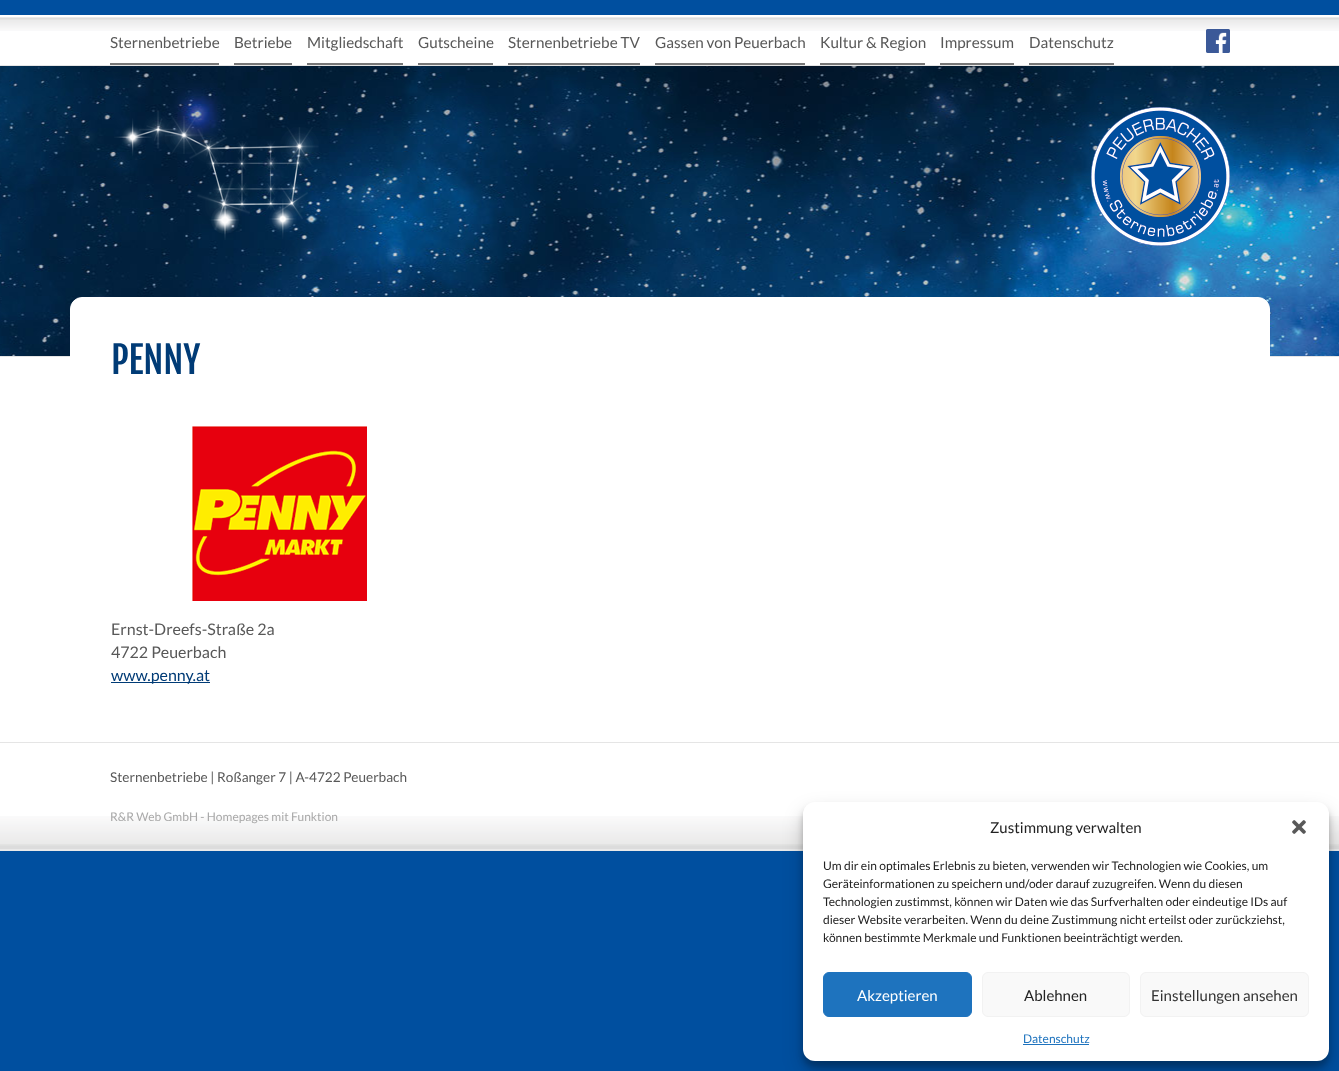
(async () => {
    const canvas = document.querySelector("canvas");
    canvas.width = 1339;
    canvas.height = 1071;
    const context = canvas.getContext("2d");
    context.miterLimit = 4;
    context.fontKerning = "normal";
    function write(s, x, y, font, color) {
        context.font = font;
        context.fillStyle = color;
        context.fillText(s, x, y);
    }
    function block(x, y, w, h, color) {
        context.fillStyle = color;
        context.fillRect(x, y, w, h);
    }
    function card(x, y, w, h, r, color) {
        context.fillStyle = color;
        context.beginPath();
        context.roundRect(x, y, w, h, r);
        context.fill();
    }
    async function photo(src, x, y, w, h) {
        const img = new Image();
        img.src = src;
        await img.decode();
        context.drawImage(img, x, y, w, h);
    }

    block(0, 0, 1339, 1071, "rgb(0, 79, 159)");
    block(0, 15, 1339, 801, "rgb(255, 255, 255)");
    await photo("media/1.png", 0, 17, 1339, 14);
    block(110, 63, 109, 2, "rgb(119, 119, 119)");
    write("Sternenbetriebe", 110, 48, "15.25px Lato", "rgb(88, 88, 88)");
    block(234, 63, 58, 2, "rgb(119, 119, 119)");
    write("Betriebe", 234, 48, "15.25px Lato", "rgb(88, 88, 88)");
    block(307, 63, 96, 2, "rgb(119, 119, 119)");
    write("Mitgliedschaft", 307, 48, "15.25px Lato", "rgb(88, 88, 88)");
    block(418, 63, 75, 2, "rgb(119, 119, 119)");
    write("Gutscheine", 418, 48, "15.25px Lato", "rgb(88, 88, 88)");
    block(508, 63, 132, 2, "rgb(119, 119, 119)");
    write("Sternenbetriebe TV", 508, 48, "15.25px Lato", "rgb(88, 88, 88)");
    block(655, 63, 150, 2, "rgb(119, 119, 119)");
    write("Gassen von Peuerbach", 655, 48, "15.25px Lato", "rgb(88, 88, 88)");
    block(820, 63, 105, 2, "rgb(119, 119, 119)");
    write("Kultur & Region", 820, 48, "15.25px Lato", "rgb(88, 88, 88)");
    block(940, 63, 74, 2, "rgb(119, 119, 119)");
    write("Impressum", 940, 48, "15.25px Lato", "rgb(88, 88, 88)");
    block(1029, 63, 85, 2, "rgb(119, 119, 119)");
    write("Datenschutz", 1029, 48, "15.25px Lato", "rgb(88, 88, 88)");
    await photo("media/2.png", 1206, 29, 24, 24);
    await photo("media/3.png", 0, 66, 1339, 290);
    block(0, 65, 1339, 1, "rgb(229, 229, 229)");
    block(0, 356, 1339, 1, "rgb(229, 229, 229)");
    await photo("media/4.png", 114, 110, 205, 130);
    await photo("media/5.png", 1091, 107, 139, 139);
    context.fillStyle = "rgb(255, 255, 255)";
    context.beginPath();
    context.roundRect(70.5, 297.5, 1199, 444, 11.5);
    context.fill();
    context.strokeStyle = "rgb(255, 255, 255)";
    context.stroke();
    write("PENNY", 111, 374, "37px Fjalla One", "rgb(0, 59, 118)");
    await photo("media/6.png", 192, 426, 175, 175);
    write("Ernst-Dreefs-Straße 2a", 111, 635, "16px Lato", "rgb(88, 88, 88)");
    write("4722 Peuerbach", 111, 658, "16px Lato", "rgb(88, 88, 88)");
    block(111, 682, 99, 1, "rgb(0, 59, 118)");
    write("www.penny.at", 111, 681, "16px Lato", "rgb(0, 59, 118)");
    await photo("media/7.png", 0, 816, 1339, 35);
    block(0, 742, 1339, 1, "rgb(229, 229, 229)");
    write("Sternenbetriebe | Roßanger 7 | A-4722 Peuerbach", 110, 782, "13.6px Lato", "rgb(88, 88, 88)");
    write("R&R Web GmbH - Homepages mit Funktion", 110, 821, "12px Lato", "rgb(169, 169, 169)");
    context.fillStyle = "rgba(0, 0, 0, 0.23)";
    context.filter = "blur(3px)";
    context.beginPath();
    context.roundRect(803, 808, 526, 259, 12);
    context.fill();
    context.filter = "none";
    context.fillStyle = "rgba(0, 0, 0, 0.19)";
    context.filter = "blur(10px)";
    context.beginPath();
    context.roundRect(803, 812, 526, 259, 12);
    context.fill();
    context.filter = "none";
    card(803, 802, 526, 259, 12, "rgb(255, 255, 255)");
    write("Zustimmung verwalten", 990, 833, "15px Lato", "rgb(34, 34, 34)");
    await photo("media/8.png", 1292, 820, 14, 14);
    write("Um dir ein optimales Erlebnis zu bieten, verwenden wir Technologien wie Cookies, um", 823, 870, "12px Lato", "rgb(34, 34, 34)");
    write("Geräteinformationen zu speichern und/oder darauf zuzugreifen. Wenn du diesen", 823, 888, "12px Lato", "rgb(34, 34, 34)");
    write("Technologien zustimmst, können wir Daten wie das Surfverhalten oder eindeutige IDs auf", 823, 906, "12px Lato", "rgb(34, 34, 34)");
    write("dieser Website verarbeiten. Wenn du deine Zustimmung nicht erteilst oder zurückziehst,", 823, 924, "12px Lato", "rgb(34, 34, 34)");
    write("können bestimmte Merkmale und Funktionen beeinträchtigt werden.", 823, 942, "12px Lato", "rgb(34, 34, 34)");
    context.fillStyle = "rgb(30, 115, 190)";
    context.beginPath();
    context.roundRect(823.5, 972.5, 148, 44, 5.5);
    context.fill();
    context.strokeStyle = "rgb(30, 115, 190)";
    context.stroke();
    write("Akzeptieren", 857, 1001, "15px Lato", "rgb(255, 255, 255)");
    context.fillStyle = "rgb(249, 249, 249)";
    context.beginPath();
    context.roundRect(982.5, 972.5, 147, 44, 5.5);
    context.fill();
    context.strokeStyle = "rgb(242, 242, 242)";
    context.stroke();
    write("Ablehnen", 1024, 1001, "15px Lato", "rgb(34, 34, 34)");
    context.fillStyle = "rgb(249, 249, 249)";
    context.beginPath();
    context.roundRect(1140.5, 972.5, 168, 44, 5.5);
    context.fill();
    context.stroke();
    write("Einstellungen ansehen", 1151, 1001, "15px Lato", "rgb(51, 51, 51)");
    write("Datenschutz", 1023, 1043, "12px Lato", "rgb(30, 115, 190)");
    block(1023, 1044, 66, 1, "rgb(30, 115, 190)");
})();
